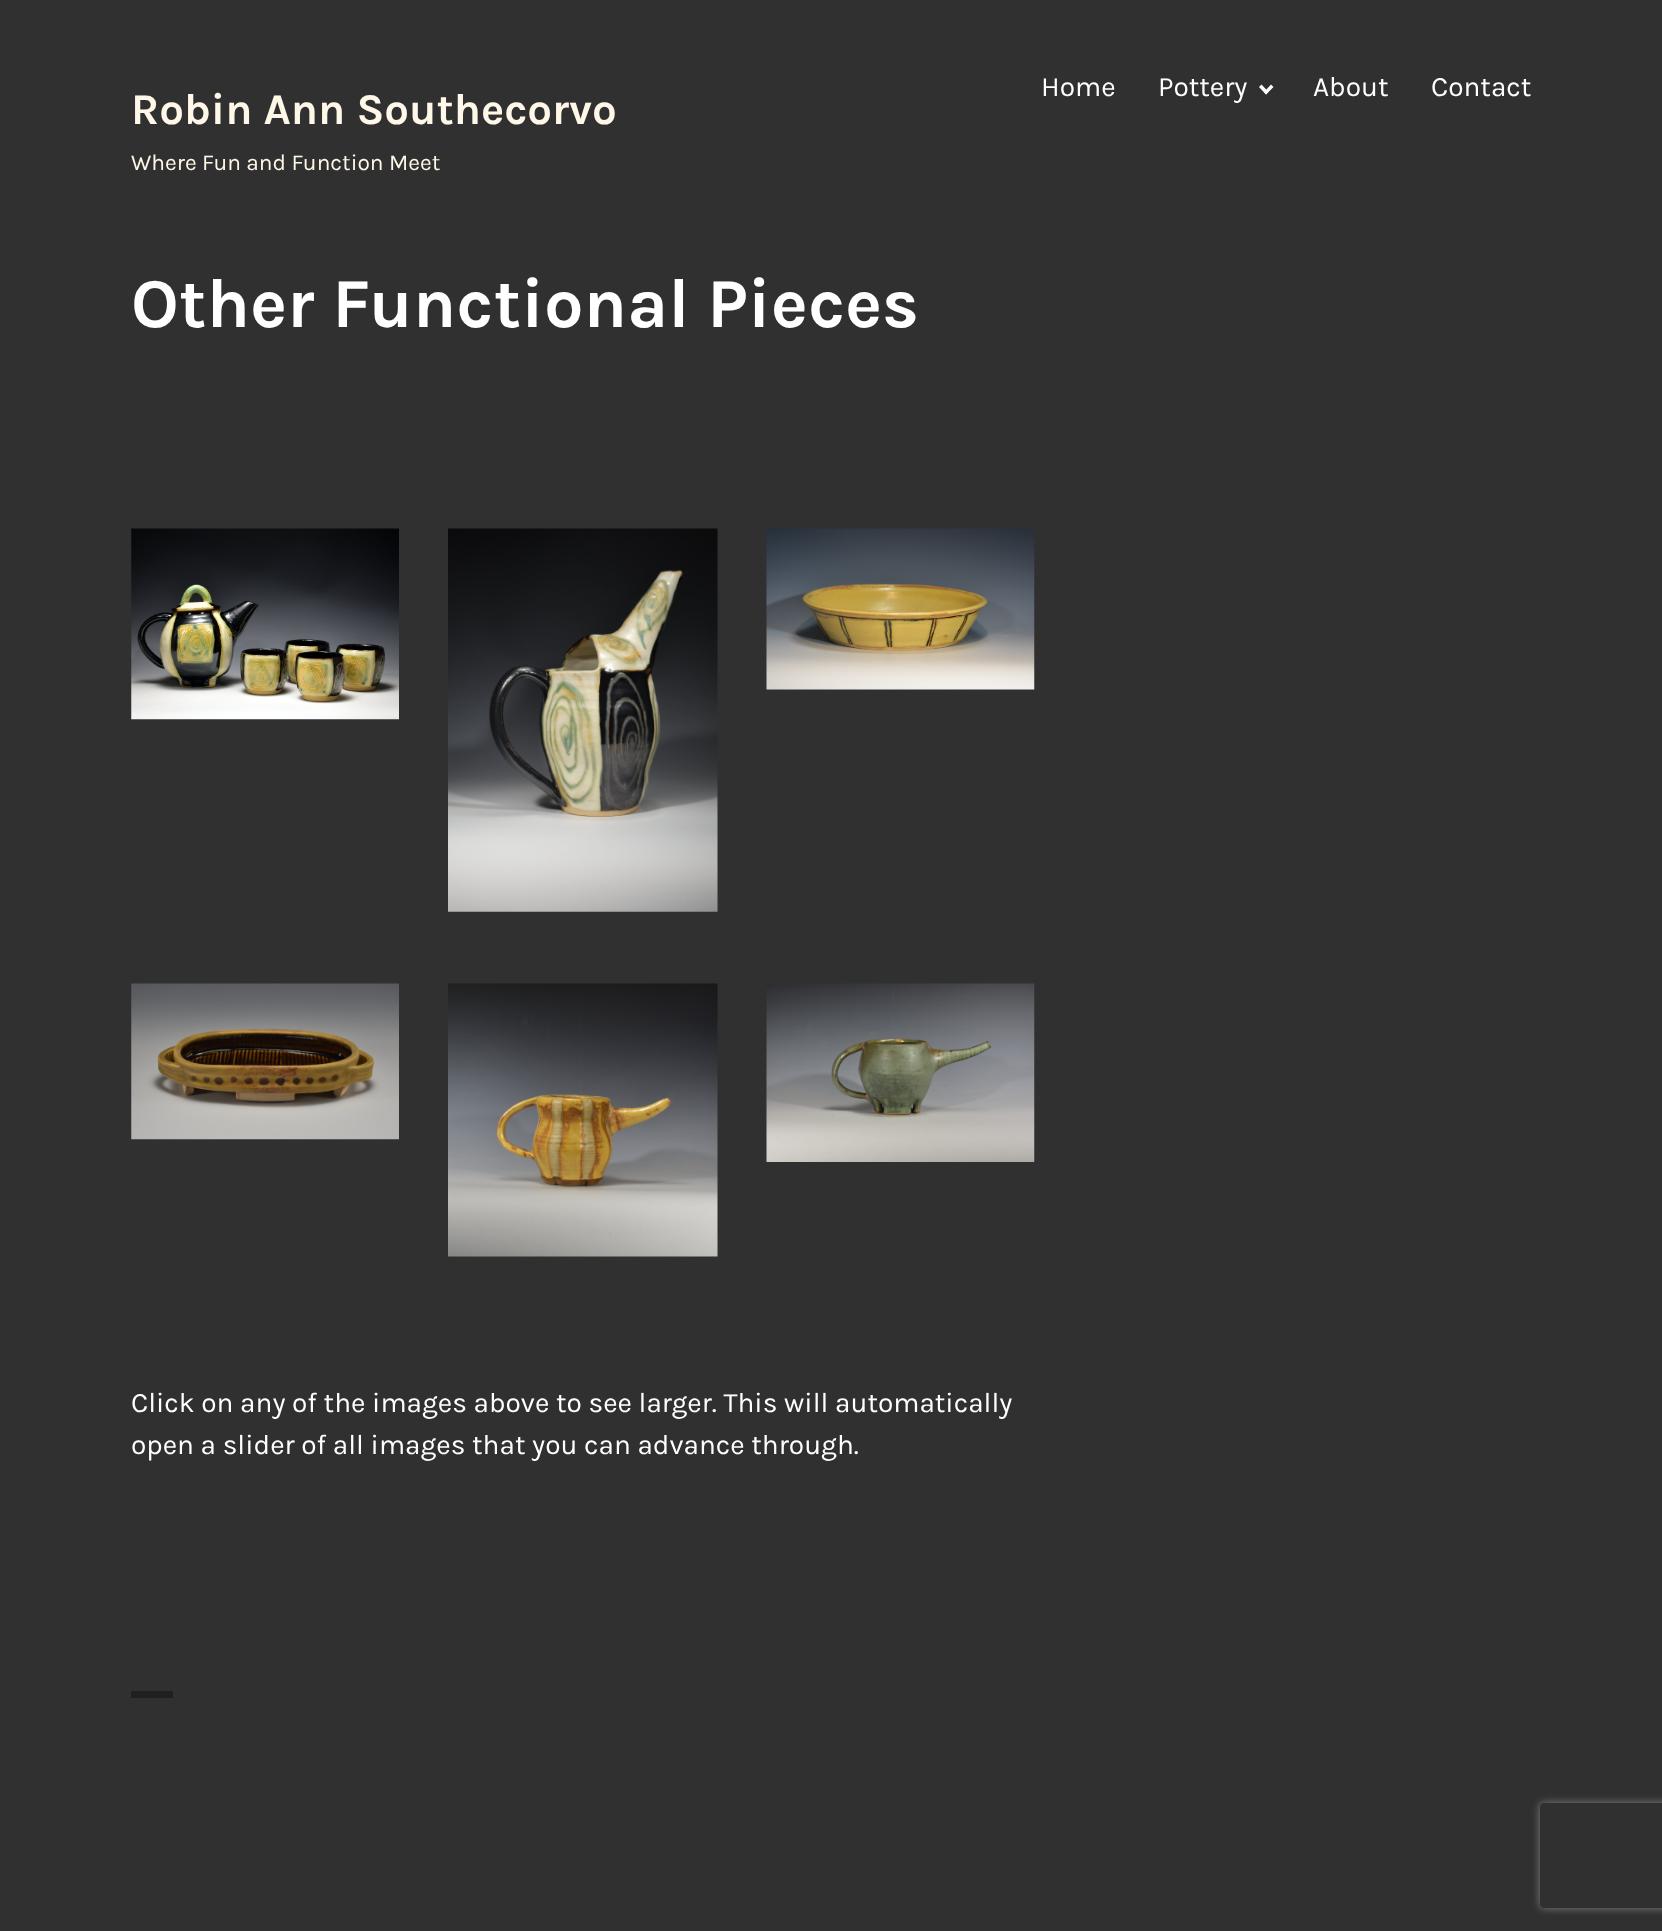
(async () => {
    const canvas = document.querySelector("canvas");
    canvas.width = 1662;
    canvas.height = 1931;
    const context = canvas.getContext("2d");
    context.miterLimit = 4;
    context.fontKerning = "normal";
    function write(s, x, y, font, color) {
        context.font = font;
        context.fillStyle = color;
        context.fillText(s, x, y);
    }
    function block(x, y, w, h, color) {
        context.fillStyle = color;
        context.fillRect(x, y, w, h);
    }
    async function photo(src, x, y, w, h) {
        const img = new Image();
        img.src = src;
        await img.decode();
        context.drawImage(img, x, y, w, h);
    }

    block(0, 0, 1662, 1931, "rgb(48, 48, 48)");
    write("Robin Ann Southecorvo", 131, 124, "bold 43.75px Karla", "rgb(255, 248, 232)");
    write("Where Fun and Function Meet", 131, 170, "22.75px Karla", "rgb(255, 248, 232)");
    write("Home", 1041, 96, "28px Karla", "rgb(255, 255, 255)");
    write("Pottery", 1158, 96, "28px Karla", "rgb(255, 255, 255)");
    context.beginPath();
    context.moveTo(1273.5, 87);
    context.lineTo(1266, 94.5);
    context.lineTo(1264, 92);
    context.lineTo(1271, 84.5);
    context.closePath();
    context.fill();
    context.beginPath();
    context.moveTo(1268.5, 92);
    context.lineTo(1266, 94.5);
    context.lineTo(1259, 87);
    context.lineTo(1261.5, 84.5);
    context.closePath();
    context.fill();
    write("About", 1313, 96, "28px Karla", "rgb(255, 255, 255)");
    write("Contact", 1431, 96, "28px Karla", "rgb(255, 255, 255)");
    write("Other Functional Pieces", 131, 327, "bold 70px Karla", "rgb(255, 255, 255)");
    await photo("media/1.png", 131, 528, 268, 192);
    await photo("media/2.png", 448, 528, 270, 384);
    await photo("media/3.png", 766, 528, 269, 162);
    await photo("media/4.png", 131, 983, 268, 157);
    await photo("media/5.png", 448, 983, 270, 274);
    await photo("media/6.png", 766, 983, 269, 179);
    write("Click on any of the images above to see larger. This will automatically", 131, 1412, "28px Karla", "rgb(255, 255, 255)");
    write("open a slider of all images that you can advance through.", 131, 1454, "28px Karla", "rgb(255, 255, 255)");
    block(131, 1691, 42, 7, "rgb(32, 32, 32)");
    context.save();
    context.beginPath();
    context.moveTo(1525, 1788);
    context.lineTo(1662, 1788);
    context.lineTo(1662, 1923);
    context.lineTo(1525, 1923);
    context.closePath();
    context.moveTo(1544, 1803);
    context.lineTo(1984, 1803);
    context.bezierCurveTo(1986, 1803, 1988, 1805, 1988, 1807);
    context.lineTo(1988, 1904);
    context.bezierCurveTo(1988, 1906, 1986, 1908, 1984, 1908);
    context.lineTo(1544, 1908);
    context.bezierCurveTo(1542, 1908, 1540, 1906, 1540, 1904);
    context.lineTo(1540, 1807);
    context.bezierCurveTo(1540, 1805, 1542, 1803, 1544, 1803);
    context.closePath();
    context.clip("evenodd");
    context.fillStyle = "rgb(128, 128, 128)";
    context.filter = "blur(4.5px)";
    context.beginPath();
    context.roundRect(1540, 1803, 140, 105, 4);
    context.fill();
    context.filter = "none";
    context.restore();
})();
